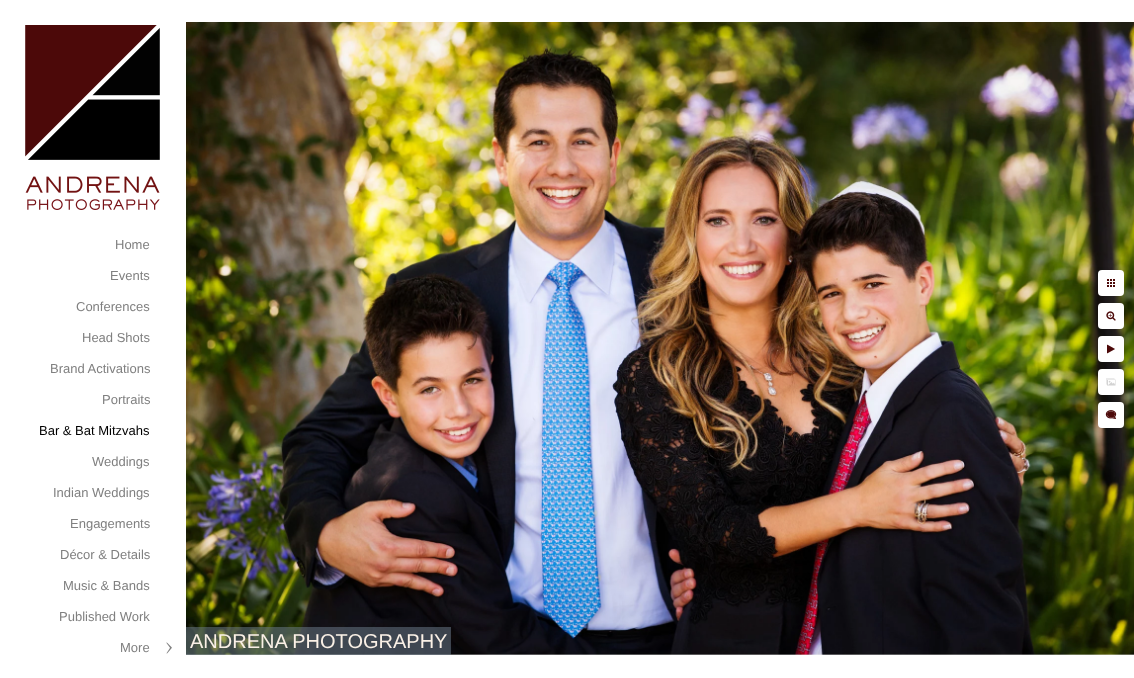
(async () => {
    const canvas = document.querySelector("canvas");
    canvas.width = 1134;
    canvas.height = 678;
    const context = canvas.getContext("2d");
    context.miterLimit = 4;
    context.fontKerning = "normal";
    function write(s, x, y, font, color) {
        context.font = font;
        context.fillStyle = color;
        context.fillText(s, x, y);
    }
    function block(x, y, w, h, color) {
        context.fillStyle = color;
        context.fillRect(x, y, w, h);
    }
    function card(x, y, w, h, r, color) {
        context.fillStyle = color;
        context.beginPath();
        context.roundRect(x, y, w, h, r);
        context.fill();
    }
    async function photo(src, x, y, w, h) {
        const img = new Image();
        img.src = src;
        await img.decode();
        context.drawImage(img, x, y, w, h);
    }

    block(0, 0, 1134, 678, "rgb(255, 255, 255)");
    await photo("media/1.png", 25, 25, 135, 185);
    write("Home", 115, 249, "13px Liberation Sans", "rgb(128, 128, 128)");
    write("Events", 110, 280, "13px Liberation Sans", "rgb(128, 128, 128)");
    write("Conferences", 76, 311, "13px Liberation Sans", "rgb(128, 128, 128)");
    write("Head Shots", 82, 342, "13px Liberation Sans", "rgb(128, 128, 128)");
    write("Brand Activations", 50, 373, "13px Liberation Sans", "rgb(128, 128, 128)");
    write("Portraits", 102, 404, "13px Liberation Sans", "rgb(128, 128, 128)");
    write("Bar & Bat Mitzvahs", 39, 435, "13px Liberation Sans", "rgb(0, 0, 0)");
    write("Weddings", 92, 466, "13px Liberation Sans", "rgb(128, 128, 128)");
    write("Indian Weddings", 53, 497, "13px Liberation Sans", "rgb(128, 128, 128)");
    write("Engagements", 70, 528, "13px Liberation Sans", "rgb(128, 128, 128)");
    write("Décor & Details", 60, 559, "13px Liberation Sans", "rgb(128, 128, 128)");
    write("Music & Bands", 63, 590, "13px Liberation Sans", "rgb(128, 128, 128)");
    write("Published Work", 59, 621, "13px Liberation Sans", "rgb(128, 128, 128)");
    write("More", 120, 652, "13px Liberation Sans", "rgb(128, 128, 128)");
    await photo("media/2.png", 166, 642, 6, 12);
    await photo("media/8.png", 186, 22, 948, 633);
    card(1098, 270, 26, 26, 4, "rgb(255, 255, 255)");
    await photo("media/3.png", 1107, 279, 8, 8);
    card(1098, 303, 26, 26, 4, "rgb(255, 255, 255)");
    await photo("media/4.png", 1106, 311, 10, 10);
    card(1098, 336, 26, 26, 4, "rgb(255, 255, 255)");
    await photo("media/5.png", 1107, 344, 8, 10);
    card(1098, 369, 26, 26, 4, "rgb(255, 255, 255)");
    await photo("media/6.png", 1106, 378, 10, 8);
    card(1098, 402, 26, 26, 4, "rgb(255, 255, 255)");
    await photo("media/7.png", 1105, 410, 12, 9);
    block(186, 627, 265, 28, "rgba(112, 128, 144, 0.5)");
    write("ANDRENA PHOTOGRAPHY", 190, 648, "20px Liberation Sans", "rgb(250, 240, 230)");
})();
